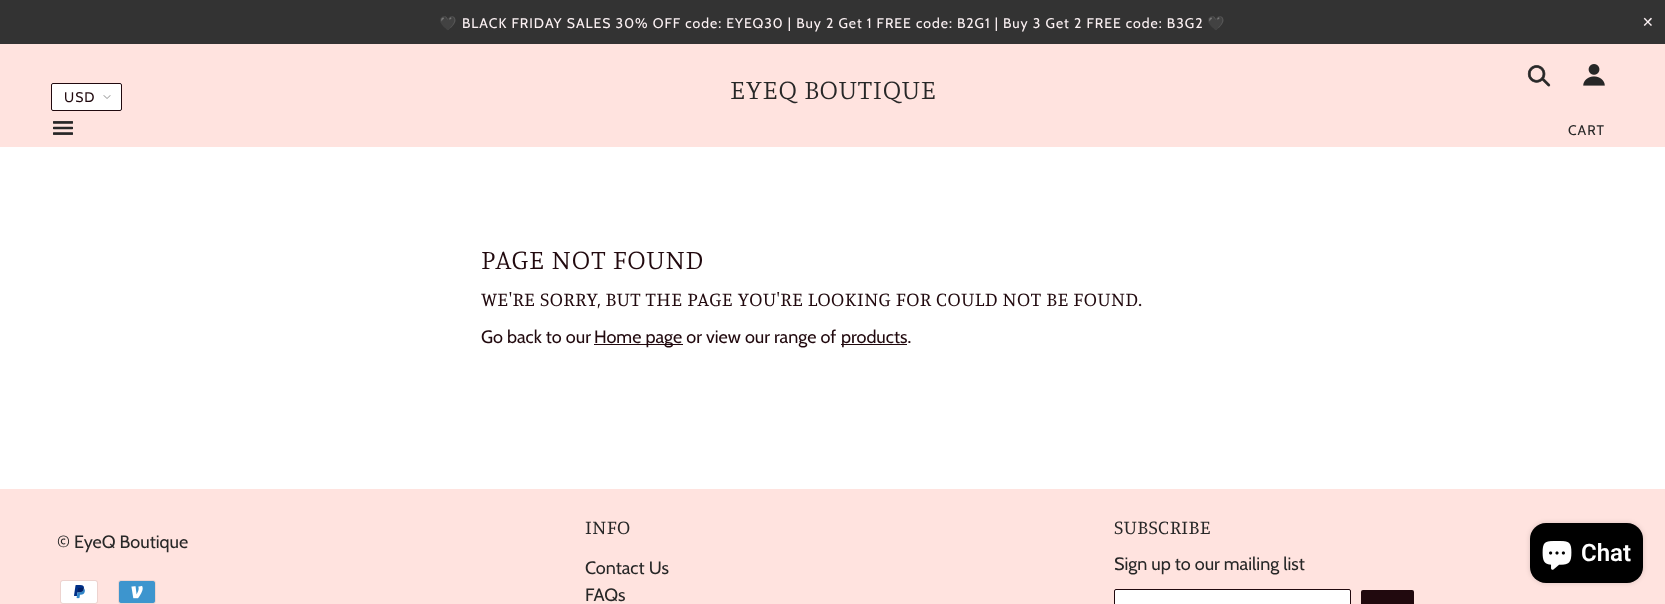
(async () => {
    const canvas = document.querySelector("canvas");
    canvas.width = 1665;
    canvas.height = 604;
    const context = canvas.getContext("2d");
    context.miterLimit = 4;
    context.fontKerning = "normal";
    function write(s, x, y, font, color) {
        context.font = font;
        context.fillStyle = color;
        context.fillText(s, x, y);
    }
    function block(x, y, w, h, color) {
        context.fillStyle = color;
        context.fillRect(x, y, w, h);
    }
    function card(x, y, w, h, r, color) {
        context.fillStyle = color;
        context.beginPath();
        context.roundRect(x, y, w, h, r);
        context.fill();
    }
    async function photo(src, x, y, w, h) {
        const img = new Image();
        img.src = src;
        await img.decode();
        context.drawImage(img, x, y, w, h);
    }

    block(0, 0, 1665, 604, "rgb(255, 255, 255)");
    block(0, 0, 1665, 44, "rgb(51, 51, 51)");
    context.letterSpacing = "1px";
    write("🖤", 439, 28, "14px Noto Color Emoji", "rgb(252, 242, 244)");
    write("BLACK FRIDAY SALES 30% OFF code: EYEQ30 | Buy 2 Get 1 FREE code: B2G1 | Buy 3 Get 2 FREE code: B3G2", 462, 28, "14px Cabin", "rgb(252, 242, 244)");
    write("🖤", 1207, 28, "14px Noto Color Emoji", "rgb(252, 242, 244)");
    write("✕", 1642, 27, "14px DejaVu Sans", "rgb(252, 242, 244)");
    block(0, 44, 1665, 103, "rgb(255, 227, 223)");
    await photo("media/1.png", 1527, 65, 24, 22);
    await photo("media/2.png", 1583, 64, 22, 22);
    card(51, 83, 71, 28, 2, "rgb(255, 255, 255)");
    await photo("media/3.png", 103, 95, 8, 4);
    context.beginPath();
    context.roundRect(51.5, 83.5, 70, 27, 1.5);
    context.strokeStyle = "rgb(33, 9, 14)";
    context.stroke();
    write("USD", 64, 102, "14px Cabin", "rgb(33, 9, 14)");
    context.letterSpacing = "0.75px";
    write("EYEQ BOUTIQUE", 730, 99, "300 28px Manuale", "rgb(39, 39, 39)");
    await photo("media/4.png", 53, 121, 20, 14);
    context.letterSpacing = "1px";
    write("CART", 1568, 135, "14px Cabin", "rgb(39, 39, 39)");
    context.letterSpacing = "0.75px";
    write("PAGE NOT FOUND", 481, 269, "300 28px Manuale", "rgb(33, 9, 14)");
    context.letterSpacing = "0.5px";
    write("WE'RE SORRY, BUT THE PAGE YOU'RE LOOKING FOR COULD NOT BE FOUND.", 481, 306, "20px Manuale", "rgb(33, 9, 14)");
    context.letterSpacing = "0px";
    write("Go back to our", 481, 343, "18px Cabin", "rgb(33, 9, 14)");
    block(594, 344, 89, 1, "rgb(33, 9, 14)");
    write("Home page or view our range of", 594, 343, "18px Cabin", "rgb(33, 9, 14)");
    block(841, 344, 66, 1, "rgb(33, 9, 14)");
    write("products.", 841, 343, "18px Cabin", "rgb(33, 9, 14)");
    block(0, 489, 1665, 115, "rgb(255, 227, 223)");
    write("© EyeQ Boutique", 57, 548, "18px Cabin", "rgb(39, 39, 39)");
    await photo("media/5.png", 60, 580, 38, 24);
    await photo("media/6.png", 118, 580, 38, 24);
    context.letterSpacing = "0.5px";
    write("INFO", 585, 534, "20px Manuale", "rgb(39, 39, 39)");
    context.letterSpacing = "0px";
    write("Contact Us", 585, 574, "18px Cabin", "rgb(39, 39, 39)");
    write("FAQs", 585, 601, "18px Cabin", "rgb(39, 39, 39)");
    context.letterSpacing = "0.5px";
    write("SUBSCRIBE", 1114, 534, "20px Manuale", "rgb(39, 39, 39)");
    context.letterSpacing = "0px";
    write("Sign up to our mailing list", 1114, 570, "18px Cabin", "rgb(39, 39, 39)");
    context.fillStyle = "rgb(255, 255, 255)";
    context.beginPath();
    context.roundRect(1114.5, 589.5, 236, 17, 1.5);
    context.fill();
    context.stroke();
    card(1361, 590, 53, 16, 2, "rgb(33, 9, 14)");
    context.fillStyle = "rgba(0, 0, 0, 0.15)";
    context.filter = "blur(2.5px)";
    context.beginPath();
    context.roundRect(1530, 523, 113, 60, 16);
    context.fill();
    context.filter = "none";
    card(1530, 523, 113, 60, 16, "rgb(0, 0, 0)");
    await photo("media/7.png", 1542, 541, 30, 29);
    write("Chat", 1581, 561, "600 24px Roboto", "rgb(255, 255, 255)");
})();
